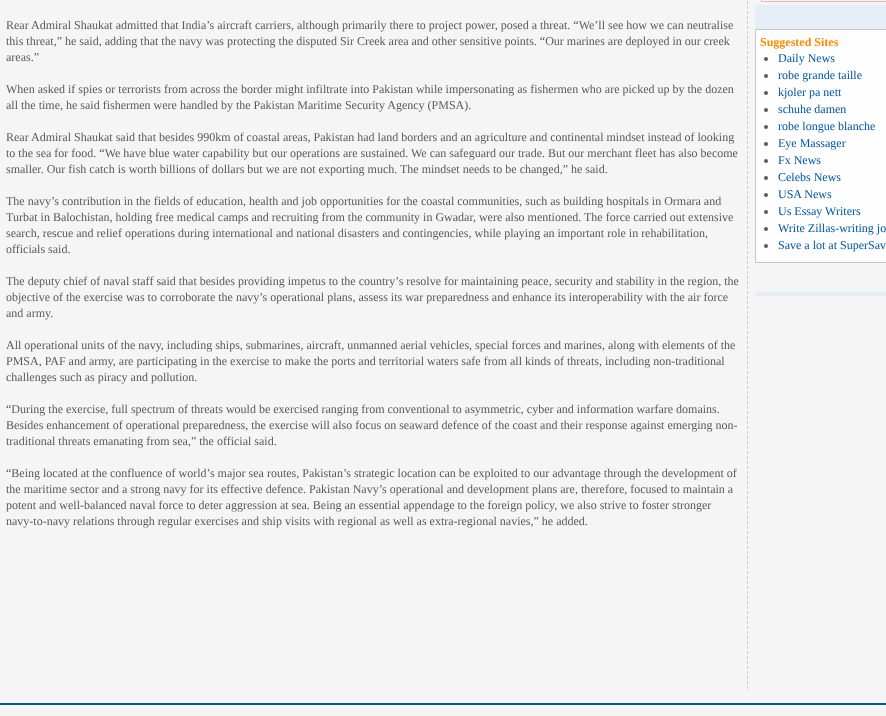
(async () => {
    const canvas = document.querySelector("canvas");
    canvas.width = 886;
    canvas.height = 716;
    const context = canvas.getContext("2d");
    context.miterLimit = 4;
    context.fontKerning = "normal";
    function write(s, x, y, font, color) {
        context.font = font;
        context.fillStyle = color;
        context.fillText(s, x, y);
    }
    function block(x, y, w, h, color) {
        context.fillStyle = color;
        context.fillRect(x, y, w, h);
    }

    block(0, 0, 886, 716, "rgb(245, 245, 245)");
    write("Rear Admiral Shaukat admitted that India’s aircraft carriers, although primarily there to project power, posed a threat. “We’ll see how we can neutralise", 6, 29, "12px Liberation Serif", "rgb(90, 90, 90)");
    write("this threat,” he said, adding that the navy was protecting the disputed Sir Creek area and other sensitive points. “Our marines are deployed in our creek", 6, 45, "12px Liberation Serif", "rgb(90, 90, 90)");
    write("areas.”", 6, 61, "12px Liberation Serif", "rgb(90, 90, 90)");
    write("When asked if spies or terrorists from across the border might infiltrate into Pakistan while impersonating as fishermen who are picked up by the dozen", 6, 93, "12px Liberation Serif", "rgb(90, 90, 90)");
    write("all the time, he said fishermen were handled by the Pakistan Maritime Security Agency (PMSA).", 6, 109, "12px Liberation Serif", "rgb(90, 90, 90)");
    write("Rear Admiral Shaukat said that besides 990km of coastal areas, Pakistan had land borders and an agriculture and continental mindset instead of looking", 6, 141, "12px Liberation Serif", "rgb(90, 90, 90)");
    write("to the sea for food. “We have blue water capability but our operations are sustained. We can safeguard our trade. But our merchant fleet has also become", 6, 157, "12px Liberation Serif", "rgb(90, 90, 90)");
    write("smaller. Our fish catch is worth billions of dollars but we are not exporting much. The mindset needs to be changed,” he said.", 6, 173, "12px Liberation Serif", "rgb(90, 90, 90)");
    write("The navy’s contribution in the fields of education, health and job opportunities for the coastal communities, such as building hospitals in Ormara and", 6, 205, "12px Liberation Serif", "rgb(90, 90, 90)");
    write("Turbat in Balochistan, holding free medical camps and recruiting from the community in Gwadar, were also mentioned. The force carried out extensive", 6, 221, "12px Liberation Serif", "rgb(90, 90, 90)");
    write("search, rescue and relief operations during international and national disasters and contingencies, while playing an important role in rehabilitation,", 6, 237, "12px Liberation Serif", "rgb(90, 90, 90)");
    write("officials said.", 6, 253, "12px Liberation Serif", "rgb(90, 90, 90)");
    write("The deputy chief of naval staff said that besides providing impetus to the country’s resolve for maintaining peace, security and stability in the region, the", 6, 285, "12px Liberation Serif", "rgb(90, 90, 90)");
    write("objective of the exercise was to corroborate the navy’s operational plans, assess its war preparedness and enhance its interoperability with the air force", 6, 301, "12px Liberation Serif", "rgb(90, 90, 90)");
    write("and army.", 6, 317, "12px Liberation Serif", "rgb(90, 90, 90)");
    write("All operational units of the navy, including ships, submarines, aircraft, unmanned aerial vehicles, special forces and marines, along with elements of the", 6, 349, "12px Liberation Serif", "rgb(90, 90, 90)");
    write("PMSA, PAF and army, are participating in the exercise to make the ports and territorial waters safe from all kinds of threats, including non-traditional", 6, 365, "12px Liberation Serif", "rgb(90, 90, 90)");
    write("challenges such as piracy and pollution.", 6, 381, "12px Liberation Serif", "rgb(90, 90, 90)");
    write("“During the exercise, full spectrum of threats would be exercised ranging from conventional to asymmetric, cyber and information warfare domains.", 6, 413, "12px Liberation Serif", "rgb(90, 90, 90)");
    write("Besides enhancement of operational preparedness, the exercise will also focus on seaward defence of the coast and their response against emerging non-", 6, 429, "12px Liberation Serif", "rgb(90, 90, 90)");
    write("traditional threats emanating from sea,” the official said.", 6, 445, "12px Liberation Serif", "rgb(90, 90, 90)");
    write("“Being located at the confluence of world’s major sea routes, Pakistan’s strategic location can be exploited to our advantage through the development of", 6, 477, "12px Liberation Serif", "rgb(90, 90, 90)");
    write("the maritime sector and a strong navy for its effective defence. Pakistan Navy’s operational and development plans are, therefore, focused to maintain a", 6, 493, "12px Liberation Serif", "rgb(90, 90, 90)");
    write("potent and well-balanced naval force to deter aggression at sea. Being an essential appendage to the foreign policy, we also strive to foster stronger", 6, 509, "12px Liberation Serif", "rgb(90, 90, 90)");
    write("navy-to-navy relations through regular exercises and ship visits with regional as well as extra-regional navies,” he added.", 6, 525, "12px Liberation Serif", "rgb(90, 90, 90)");
    context.beginPath();
    context.moveTo(747.5, -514);
    context.lineTo(747.5, 689);
    context.strokeStyle = "rgb(204, 204, 204)";
    context.setLineDash([3, 2]);
    context.stroke();
    block(761, 0, 125, 2, "rgb(242, 180, 180)");
    block(762, 0, 124, 1, "rgb(253, 241, 241)");
    block(755, 5, 131, 24, "rgb(229, 238, 246)");
    context.fillStyle = "rgb(254, 254, 254)";
    context.beginPath();
    context.rect(755.5, 29.5, 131, 233);
    context.fill();
    context.strokeStyle = "rgb(198, 198, 198)";
    context.setLineDash([]);
    context.stroke();
    write("Suggested Sites", 760, 46, "bold 12px Liberation Serif", "rgb(254, 138, 0)");
    context.fillStyle = "rgb(90, 90, 90)";
    context.beginPath();
    context.arc(766, 59, 2, 0, Math.PI * 2);
    context.fill();
    write("Daily News", 778, 62, "12px Liberation Serif", "rgb(0, 85, 165)");
    context.fillStyle = "rgb(90, 90, 90)";
    context.beginPath();
    context.arc(766, 76, 2, 0, Math.PI * 2);
    context.fill();
    write("robe grande taille", 778, 79, "12px Liberation Serif", "rgb(0, 85, 165)");
    context.fillStyle = "rgb(90, 90, 90)";
    context.beginPath();
    context.arc(766, 93, 2, 0, Math.PI * 2);
    context.fill();
    write("kjoler pa nett", 778, 96, "12px Liberation Serif", "rgb(0, 85, 165)");
    context.fillStyle = "rgb(90, 90, 90)";
    context.beginPath();
    context.arc(766, 110, 2, 0, Math.PI * 2);
    context.fill();
    write("schuhe damen", 778, 113, "12px Liberation Serif", "rgb(0, 85, 165)");
    context.fillStyle = "rgb(90, 90, 90)";
    context.beginPath();
    context.arc(766, 127, 2, 0, Math.PI * 2);
    context.fill();
    write("robe longue blanche", 778, 130, "12px Liberation Serif", "rgb(0, 85, 165)");
    context.fillStyle = "rgb(90, 90, 90)";
    context.beginPath();
    context.arc(766, 144, 2, 0, Math.PI * 2);
    context.fill();
    write("Eye Massager", 778, 147, "12px Liberation Serif", "rgb(0, 85, 165)");
    context.fillStyle = "rgb(90, 90, 90)";
    context.beginPath();
    context.arc(766, 161, 2, 0, Math.PI * 2);
    context.fill();
    write("Fx News", 778, 164, "12px Liberation Serif", "rgb(0, 85, 165)");
    context.fillStyle = "rgb(90, 90, 90)";
    context.beginPath();
    context.arc(766, 178, 2, 0, Math.PI * 2);
    context.fill();
    write("Celebs News", 778, 181, "12px Liberation Serif", "rgb(0, 85, 165)");
    context.fillStyle = "rgb(90, 90, 90)";
    context.beginPath();
    context.arc(766, 195, 2, 0, Math.PI * 2);
    context.fill();
    write("USA News", 778, 198, "12px Liberation Serif", "rgb(0, 85, 165)");
    context.fillStyle = "rgb(90, 90, 90)";
    context.beginPath();
    context.arc(766, 212, 2, 0, Math.PI * 2);
    context.fill();
    write("Us Essay Writers", 778, 215, "12px Liberation Serif", "rgb(0, 85, 165)");
    context.fillStyle = "rgb(90, 90, 90)";
    context.beginPath();
    context.arc(766, 229, 2, 0, Math.PI * 2);
    context.fill();
    write("Write Zillas-writing jo", 778, 232, "12px Liberation Serif", "rgb(0, 85, 165)");
    context.fillStyle = "rgb(90, 90, 90)";
    context.beginPath();
    context.arc(766, 246, 2, 0, Math.PI * 2);
    context.fill();
    write("Save a lot at SuperSav", 778, 249, "12px Liberation Serif", "rgb(0, 85, 165)");
    block(755, 292, 131, 4, "rgb(229, 238, 246)");
    block(0, 703, 886, 2, "rgb(0, 85, 165)");
})();
